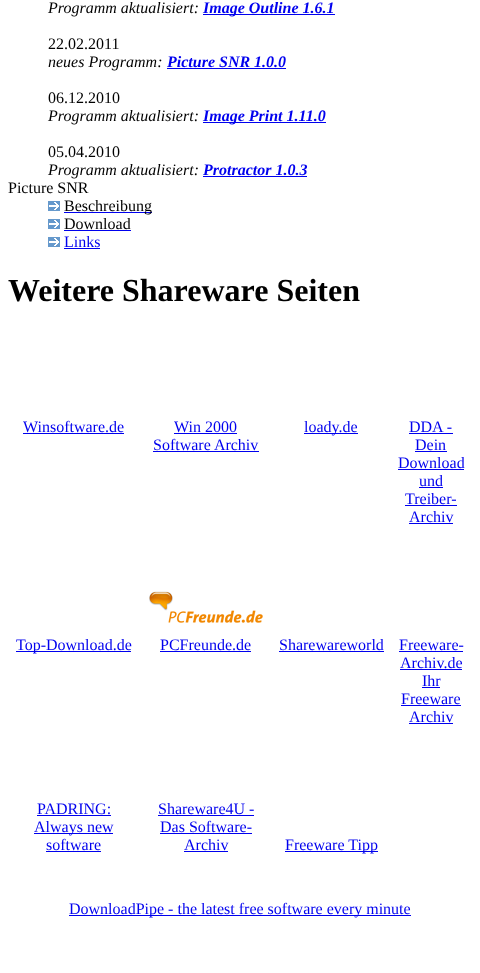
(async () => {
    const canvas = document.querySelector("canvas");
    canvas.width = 480;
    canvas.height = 973;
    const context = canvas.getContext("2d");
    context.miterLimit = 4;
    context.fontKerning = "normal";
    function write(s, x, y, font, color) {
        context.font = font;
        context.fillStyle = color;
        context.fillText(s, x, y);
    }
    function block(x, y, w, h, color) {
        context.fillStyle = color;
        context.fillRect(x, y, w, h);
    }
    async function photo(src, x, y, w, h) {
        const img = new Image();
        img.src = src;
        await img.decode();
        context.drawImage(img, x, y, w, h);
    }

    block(0, 0, 480, 973, "rgb(255, 255, 255)");
    write("Programm aktualisiert:", 48, 13, "italic 16px Liberation Serif", "rgb(0, 0, 0)");
    block(203, 14, 132, 1, "rgb(0, 0, 238)");
    write("Image Outline 1.6.1", 203, 13, "italic bold 16px Liberation Serif", "rgb(0, 0, 238)");
    write("22.02.2011", 48, 49, "16px Liberation Serif", "rgb(0, 0, 0)");
    write("neues Programm:", 48, 67, "italic 16px Liberation Serif", "rgb(0, 0, 0)");
    write("Picture SNR 1.0.0", 167, 67, "italic bold 16px Liberation Serif", "rgb(0, 0, 238)");
    block(167, 68, 119, 1, "rgb(0, 0, 238)");
    write("06.12.2010", 48, 103, "16px Liberation Serif", "rgb(0, 0, 0)");
    write("Programm aktualisiert:", 48, 121, "italic 16px Liberation Serif", "rgb(0, 0, 0)");
    block(203, 122, 123, 1, "rgb(0, 0, 238)");
    write("Image Print 1.11.0", 203, 121, "italic bold 16px Liberation Serif", "rgb(0, 0, 238)");
    write("05.04.2010", 48, 157, "16px Liberation Serif", "rgb(0, 0, 0)");
    write("Programm aktualisiert:", 48, 175, "italic 16px Liberation Serif", "rgb(0, 0, 0)");
    write("Protractor 1.0.3", 203, 175, "italic bold 16px Liberation Serif", "rgb(0, 0, 238)");
    block(203, 176, 104, 1, "rgb(0, 0, 238)");
    write("Picture SNR", 8, 193, "16px Liberation Serif", "rgb(0, 0, 0)");
    await photo("media/1.png", 48, 201, 12, 10);
    block(64, 212, 88, 1, "rgb(0, 0, 238)");
    write("Beschreibung", 64, 211, "16px Liberation Serif", "rgb(0, 0, 0)");
    await photo("media/1.png", 48, 219, 12, 10);
    write("Download", 64, 229, "16px Liberation Serif", "rgb(0, 0, 0)");
    block(64, 230, 67, 1, "rgb(0, 0, 238)");
    await photo("media/1.png", 48, 237, 12, 10);
    write("Links", 64, 247, "16px Liberation Serif", "rgb(0, 0, 238)");
    block(64, 248, 36, 1, "rgb(0, 0, 238)");
    write("Weitere Shareware Seiten", 8, 301, "bold 32px Liberation Serif", "rgb(0, 0, 0)");
    write("Winsoftware.de", 23, 432, "16px Liberation Serif", "rgb(0, 0, 238)");
    block(23, 433, 101, 1, "rgb(0, 0, 238)");
    write("Win 2000", 174, 432, "16px Liberation Serif", "rgb(0, 0, 238)");
    block(174, 433, 63, 1, "rgb(0, 0, 238)");
    write("Software Archiv", 153, 450, "16px Liberation Serif", "rgb(0, 0, 238)");
    block(153, 451, 106, 1, "rgb(0, 0, 238)");
    block(304, 433, 54, 1, "rgb(0, 0, 238)");
    write("loady.de", 304, 432, "16px Liberation Serif", "rgb(0, 0, 238)");
    write("DDA -", 409, 432, "16px Liberation Serif", "rgb(0, 0, 238)");
    block(409, 433, 44, 1, "rgb(0, 0, 238)");
    write("Dein", 415, 450, "16px Liberation Serif", "rgb(0, 0, 238)");
    block(415, 451, 32, 1, "rgb(0, 0, 238)");
    write("Download", 398, 468, "16px Liberation Serif", "rgb(0, 0, 238)");
    block(398, 469, 66, 1, "rgb(0, 0, 238)");
    write("und", 419, 486, "16px Liberation Serif", "rgb(0, 0, 238)");
    block(419, 487, 24, 1, "rgb(0, 0, 238)");
    write("Treiber-", 405, 504, "16px Liberation Serif", "rgb(0, 0, 238)");
    block(405, 505, 52, 1, "rgb(0, 0, 238)");
    write("Archiv", 409, 522, "16px Liberation Serif", "rgb(0, 0, 238)");
    block(409, 523, 44, 1, "rgb(0, 0, 238)");
    await photo("media/2.png", 149, 591, 114, 32);
    block(16, 651, 115, 1, "rgb(0, 0, 238)");
    write("Top-Download.de", 16, 650, "16px Liberation Serif", "rgb(0, 0, 238)");
    write("PCFreunde.de", 160, 650, "16px Liberation Serif", "rgb(0, 0, 238)");
    block(160, 651, 91, 1, "rgb(0, 0, 238)");
    write("Sharewareworld", 279, 650, "16px Liberation Serif", "rgb(0, 0, 238)");
    block(279, 651, 105, 1, "rgb(0, 0, 238)");
    write("Freeware-", 399, 650, "16px Liberation Serif", "rgb(0, 0, 238)");
    block(399, 651, 64, 1, "rgb(0, 0, 238)");
    write("Archiv.de", 400, 668, "16px Liberation Serif", "rgb(0, 0, 238)");
    block(400, 669, 62, 1, "rgb(0, 0, 238)");
    write("Ihr", 422, 686, "16px Liberation Serif", "rgb(0, 0, 238)");
    block(422, 687, 18, 1, "rgb(0, 0, 238)");
    write("Freeware", 401, 704, "16px Liberation Serif", "rgb(0, 0, 238)");
    block(401, 705, 60, 1, "rgb(0, 0, 238)");
    write("Archiv", 409, 722, "16px Liberation Serif", "rgb(0, 0, 238)");
    block(409, 723, 44, 1, "rgb(0, 0, 238)");
    write("PADRING:", 37, 814, "16px Liberation Serif", "rgb(0, 0, 238)");
    block(37, 815, 74, 1, "rgb(0, 0, 238)");
    block(34, 833, 79, 1, "rgb(0, 0, 238)");
    write("Always new", 34, 832, "16px Liberation Serif", "rgb(0, 0, 238)");
    write("software", 46, 850, "16px Liberation Serif", "rgb(0, 0, 238)");
    block(46, 851, 55, 1, "rgb(0, 0, 238)");
    write("Shareware4U -", 158, 814, "16px Liberation Serif", "rgb(0, 0, 238)");
    block(158, 815, 96, 1, "rgb(0, 0, 238)");
    write("Das Software-", 160, 832, "16px Liberation Serif", "rgb(0, 0, 238)");
    block(160, 833, 92, 1, "rgb(0, 0, 238)");
    write("Archiv", 184, 850, "16px Liberation Serif", "rgb(0, 0, 238)");
    block(184, 851, 44, 1, "rgb(0, 0, 238)");
    block(285, 851, 93, 1, "rgb(0, 0, 238)");
    write("Freeware Tipp", 285, 850, "16px Liberation Serif", "rgb(0, 0, 238)");
    block(69, 915, 342, 1, "rgb(0, 0, 238)");
    write("DownloadPipe - the latest free software every minute", 69, 914, "16px Liberation Serif", "rgb(0, 0, 238)");
})();
